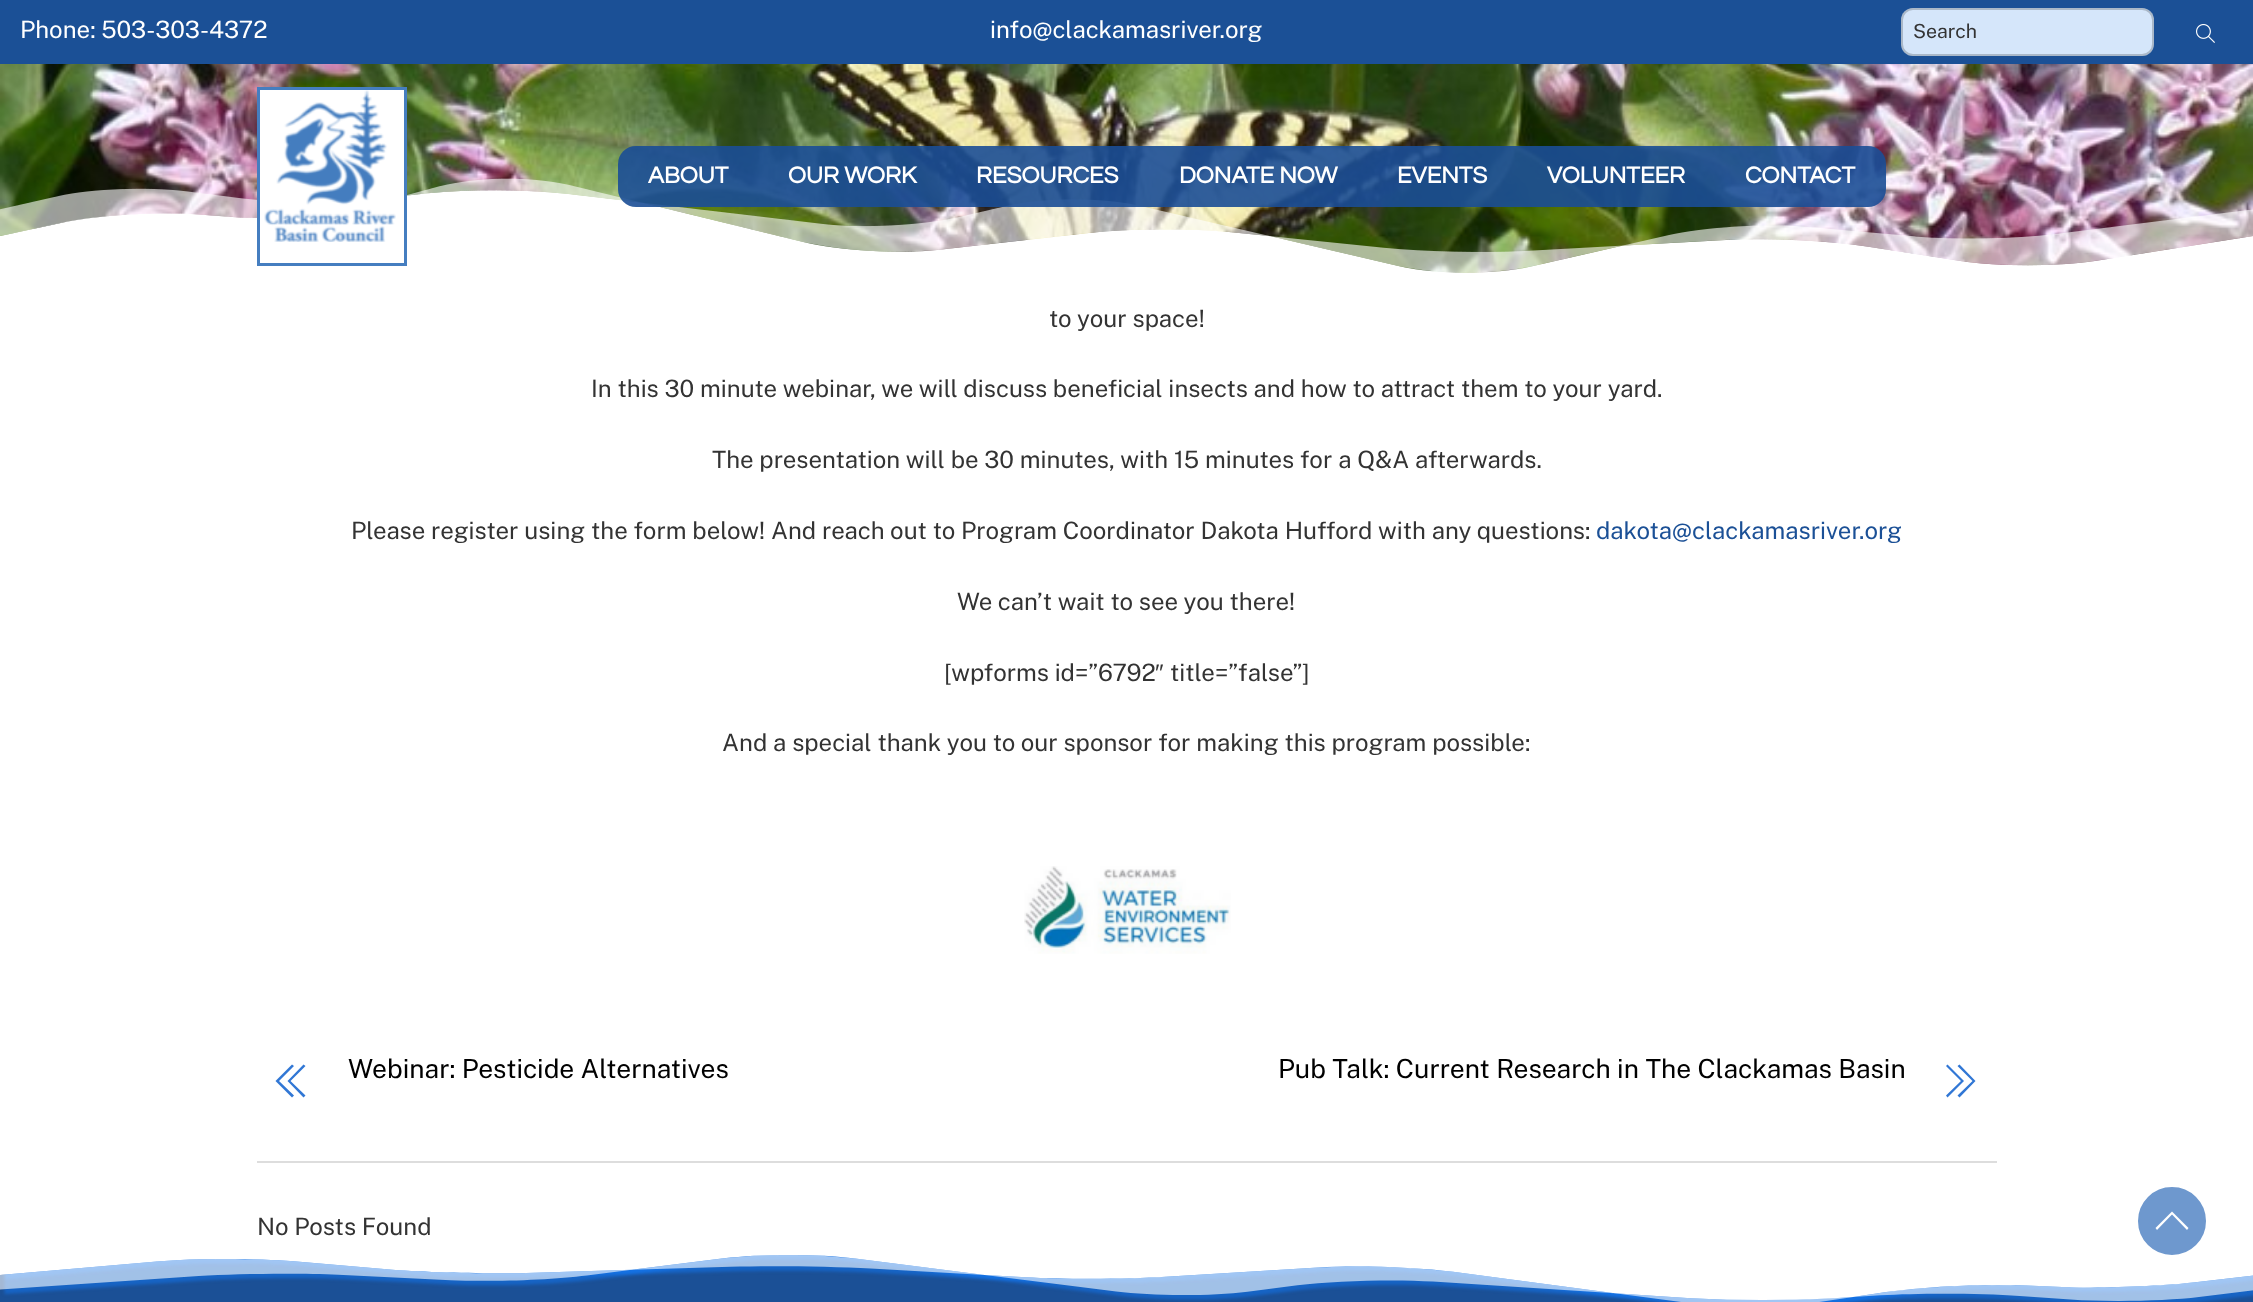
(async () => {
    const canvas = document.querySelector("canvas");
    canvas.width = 2253;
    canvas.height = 1302;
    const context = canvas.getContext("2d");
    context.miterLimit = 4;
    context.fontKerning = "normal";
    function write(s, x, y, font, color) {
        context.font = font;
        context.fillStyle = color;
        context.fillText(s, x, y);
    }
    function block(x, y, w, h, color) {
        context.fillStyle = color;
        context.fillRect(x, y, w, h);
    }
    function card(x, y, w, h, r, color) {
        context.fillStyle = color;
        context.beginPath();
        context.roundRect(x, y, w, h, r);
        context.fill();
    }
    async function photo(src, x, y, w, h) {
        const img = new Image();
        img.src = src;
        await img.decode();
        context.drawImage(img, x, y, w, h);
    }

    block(0, 0, 2253, 1302, "rgb(255, 255, 255)");
    block(0, 0, 2253, 64, "rgb(27, 80, 150)");
    write("Phone: 503-303-4372", 20, 38, "24px Public Sans", "rgb(255, 255, 255)");
    write("info@clackamasriver.org", 990, 38, "24px Public Sans", "rgb(255, 255, 255)");
    card(1901, 8, 253, 48, 12, "rgb(213, 230, 250)");
    context.beginPath();
    context.roundRect(1902, 9, 251, 46, 11);
    context.strokeStyle = "rgba(0, 0, 0, 0.2)";
    context.lineWidth = 2;
    context.stroke();
    write("Search", 1913, 38, "19.5px Public Sans", "rgb(51, 51, 51)");
    await photo("media/1.png", 2196, 24, 19, 19);
    await photo("media/2.png", 0, 64, 2253, 209);
    await photo("media/4.png", 0, 178, 2253, 111);
    block(260, 90, 144, 128, "rgb(255, 255, 255)");
    context.strokeStyle = "rgb(69, 126, 192)";
    context.lineWidth = 3;
    context.strokeRect(258.5, 88.5, 147, 176);
    await photo("media/3.png", 264, 90, 132, 152);
    card(618, 146, 1268, 61, 18, "rgba(27, 78, 150, 0.9)");
    write("ABOUT", 648, 183, "bold 24px Questrial", "rgb(255, 255, 255)");
    write("OUR WORK", 788, 183, "bold 24px Questrial", "rgb(255, 255, 255)");
    write("RESOURCES", 976, 183, "bold 24px Questrial", "rgb(255, 255, 255)");
    write("DONATE NOW", 1179, 183, "bold 24px Questrial", "rgb(255, 255, 255)");
    write("EVENTS", 1397, 183, "bold 24px Questrial", "rgb(255, 255, 255)");
    write("VOLUNTEER", 1547, 183, "bold 24px Questrial", "rgb(255, 255, 255)");
    write("CONTACT", 1745, 183, "bold 24px Questrial", "rgb(255, 255, 255)");
    write("to your space!", 1049, 327, "24px Public Sans", "rgb(51, 51, 51)");
    write("In this 30 minute webinar, we will discuss beneficial insects and how to attract them to your yard.", 591, 397, "24px Public Sans", "rgb(51, 51, 51)");
    write("The presentation will be 30 minutes, with 15 minutes for a Q&A afterwards.", 712, 468, "24px Public Sans", "rgb(51, 51, 51)");
    write("Please register using the form below! And reach out to Program Coordinator Dakota Hufford with any questions:", 351, 539, "24px Public Sans", "rgb(51, 51, 51)");
    write("dakota@clackamasriver.org", 1596, 539, "24px Public Sans", "rgb(27, 80, 150)");
    write("We can’t wait to see you there!", 957, 610, "24px Public Sans", "rgb(51, 51, 51)");
    write("[wpforms id=”6792", 944, 681, "24px Public Sans", "rgb(51, 51, 51)");
    write("″", 1155, 681, "24px Liberation Sans", "rgb(51, 51, 51)");
    write("title=”false”]", 1170, 681, "24px Public Sans", "rgb(51, 51, 51)");
    write("And a special thank you to our sponsor for making this program possible:", 722, 751, "24px Public Sans", "rgb(51, 51, 51)");
    await photo("media/5.png", 1024, 866, 207, 88);
    context.fillStyle = "rgb(49, 119, 213)";
    context.beginPath();
    context.moveTo(290.5, 1081);
    context.lineTo(305.5, 1066);
    context.lineTo(303.5, 1064.5);
    context.lineTo(287.5, 1081);
    context.lineTo(303.5, 1097.5);
    context.lineTo(305.5, 1095.5);
    context.closePath();
    context.moveTo(294, 1066);
    context.lineTo(279, 1081);
    context.lineTo(294, 1095.5);
    context.lineTo(292, 1097.5);
    context.lineTo(275.5, 1081);
    context.lineTo(292, 1064.5);
    context.closePath();
    context.fill();
    write("Webinar: Pesticide Alternatives", 348, 1078, "26.4px Public Sans", "rgb(0, 0, 0)");
    write("Pub Talk: Current Research in The Clackamas Basin", 1278, 1078, "26.4px Public Sans", "rgb(0, 0, 0)");
    context.fillStyle = "rgb(49, 119, 213)";
    context.beginPath();
    context.moveTo(1964, 1081);
    context.lineTo(1947.5, 1064.5);
    context.lineTo(1946, 1066);
    context.lineTo(1961, 1081);
    context.lineTo(1946, 1095.5);
    context.lineTo(1947.5, 1097.5);
    context.closePath();
    context.moveTo(1959.5, 1064.5);
    context.lineTo(1975.5, 1081);
    context.lineTo(1959.5, 1097.5);
    context.lineTo(1957.5, 1095.5);
    context.lineTo(1972.5, 1081);
    context.lineTo(1957.5, 1066);
    context.closePath();
    context.fill();
    block(257, 1161, 1740, 2, "rgb(221, 221, 221)");
    write("No Posts Found", 257, 1235, "24px Public Sans", "rgb(51, 51, 51)");
    block(0, 1257, 2253, 45, "rgb(27, 80, 150)");
    await photo("media/6.png", 0, 1248, 2253, 54);
    context.fillStyle = "rgb(110, 152, 206)";
    context.beginPath();
    context.arc(2172, 1221, 35, 0, Math.PI * 2);
    context.fill();
    context.strokeStyle = "rgb(255, 255, 255)";
    context.lineWidth = 2;
    context.stroke();
    context.fillStyle = "rgb(255, 255, 255)";
    context.beginPath();
    context.moveTo(2188.5, 1228);
    context.lineTo(2172, 1211.5);
    context.lineTo(2155.5, 1228);
    context.lineTo(2157, 1230);
    context.lineTo(2172, 1214.5);
    context.lineTo(2187, 1230);
    context.closePath();
    context.fill();
})();
